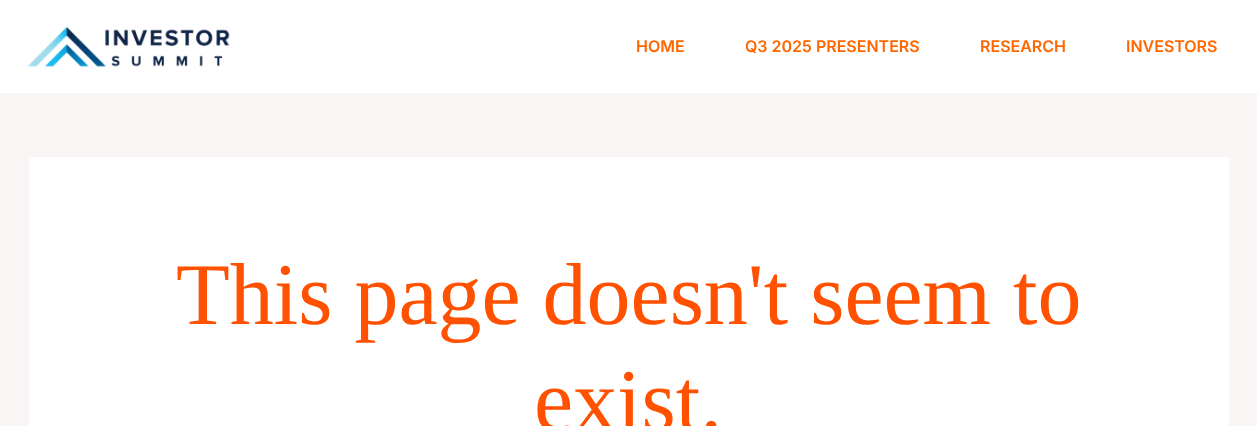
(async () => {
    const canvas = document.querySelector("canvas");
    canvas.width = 1257;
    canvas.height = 426;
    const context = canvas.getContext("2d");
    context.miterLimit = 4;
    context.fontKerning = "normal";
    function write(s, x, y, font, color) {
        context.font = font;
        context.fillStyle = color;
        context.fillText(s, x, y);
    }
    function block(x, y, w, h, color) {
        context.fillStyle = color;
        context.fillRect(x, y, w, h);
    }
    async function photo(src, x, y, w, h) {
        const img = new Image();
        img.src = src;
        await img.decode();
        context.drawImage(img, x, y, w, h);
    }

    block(0, 0, 1257, 426, "rgb(248, 245, 244)");
    block(0, 0, 1257, 93, "rgb(255, 255, 255)");
    await photo("media/1.png", 27, 26, 203, 41);
    write("HOME", 636, 52, "600 16px Inter", "rgb(255, 103, 0)");
    write("Q3 2025 PRESENTERS", 745, 52, "600 16px Inter", "rgb(255, 103, 0)");
    write("RESEARCH", 980, 52, "600 16px Inter", "rgb(255, 103, 0)");
    write("INVESTORS", 1126, 52, "600 16px Inter", "rgb(255, 103, 0)");
    block(29, 157, 1200, 269, "rgb(255, 255, 255)");
    write("This page doesn't seem to", 176, 324, "88px Liberation Serif", "rgb(255, 81, 0)");
    write("exist.", 534, 430, "88px Liberation Serif", "rgb(255, 81, 0)");
})();
